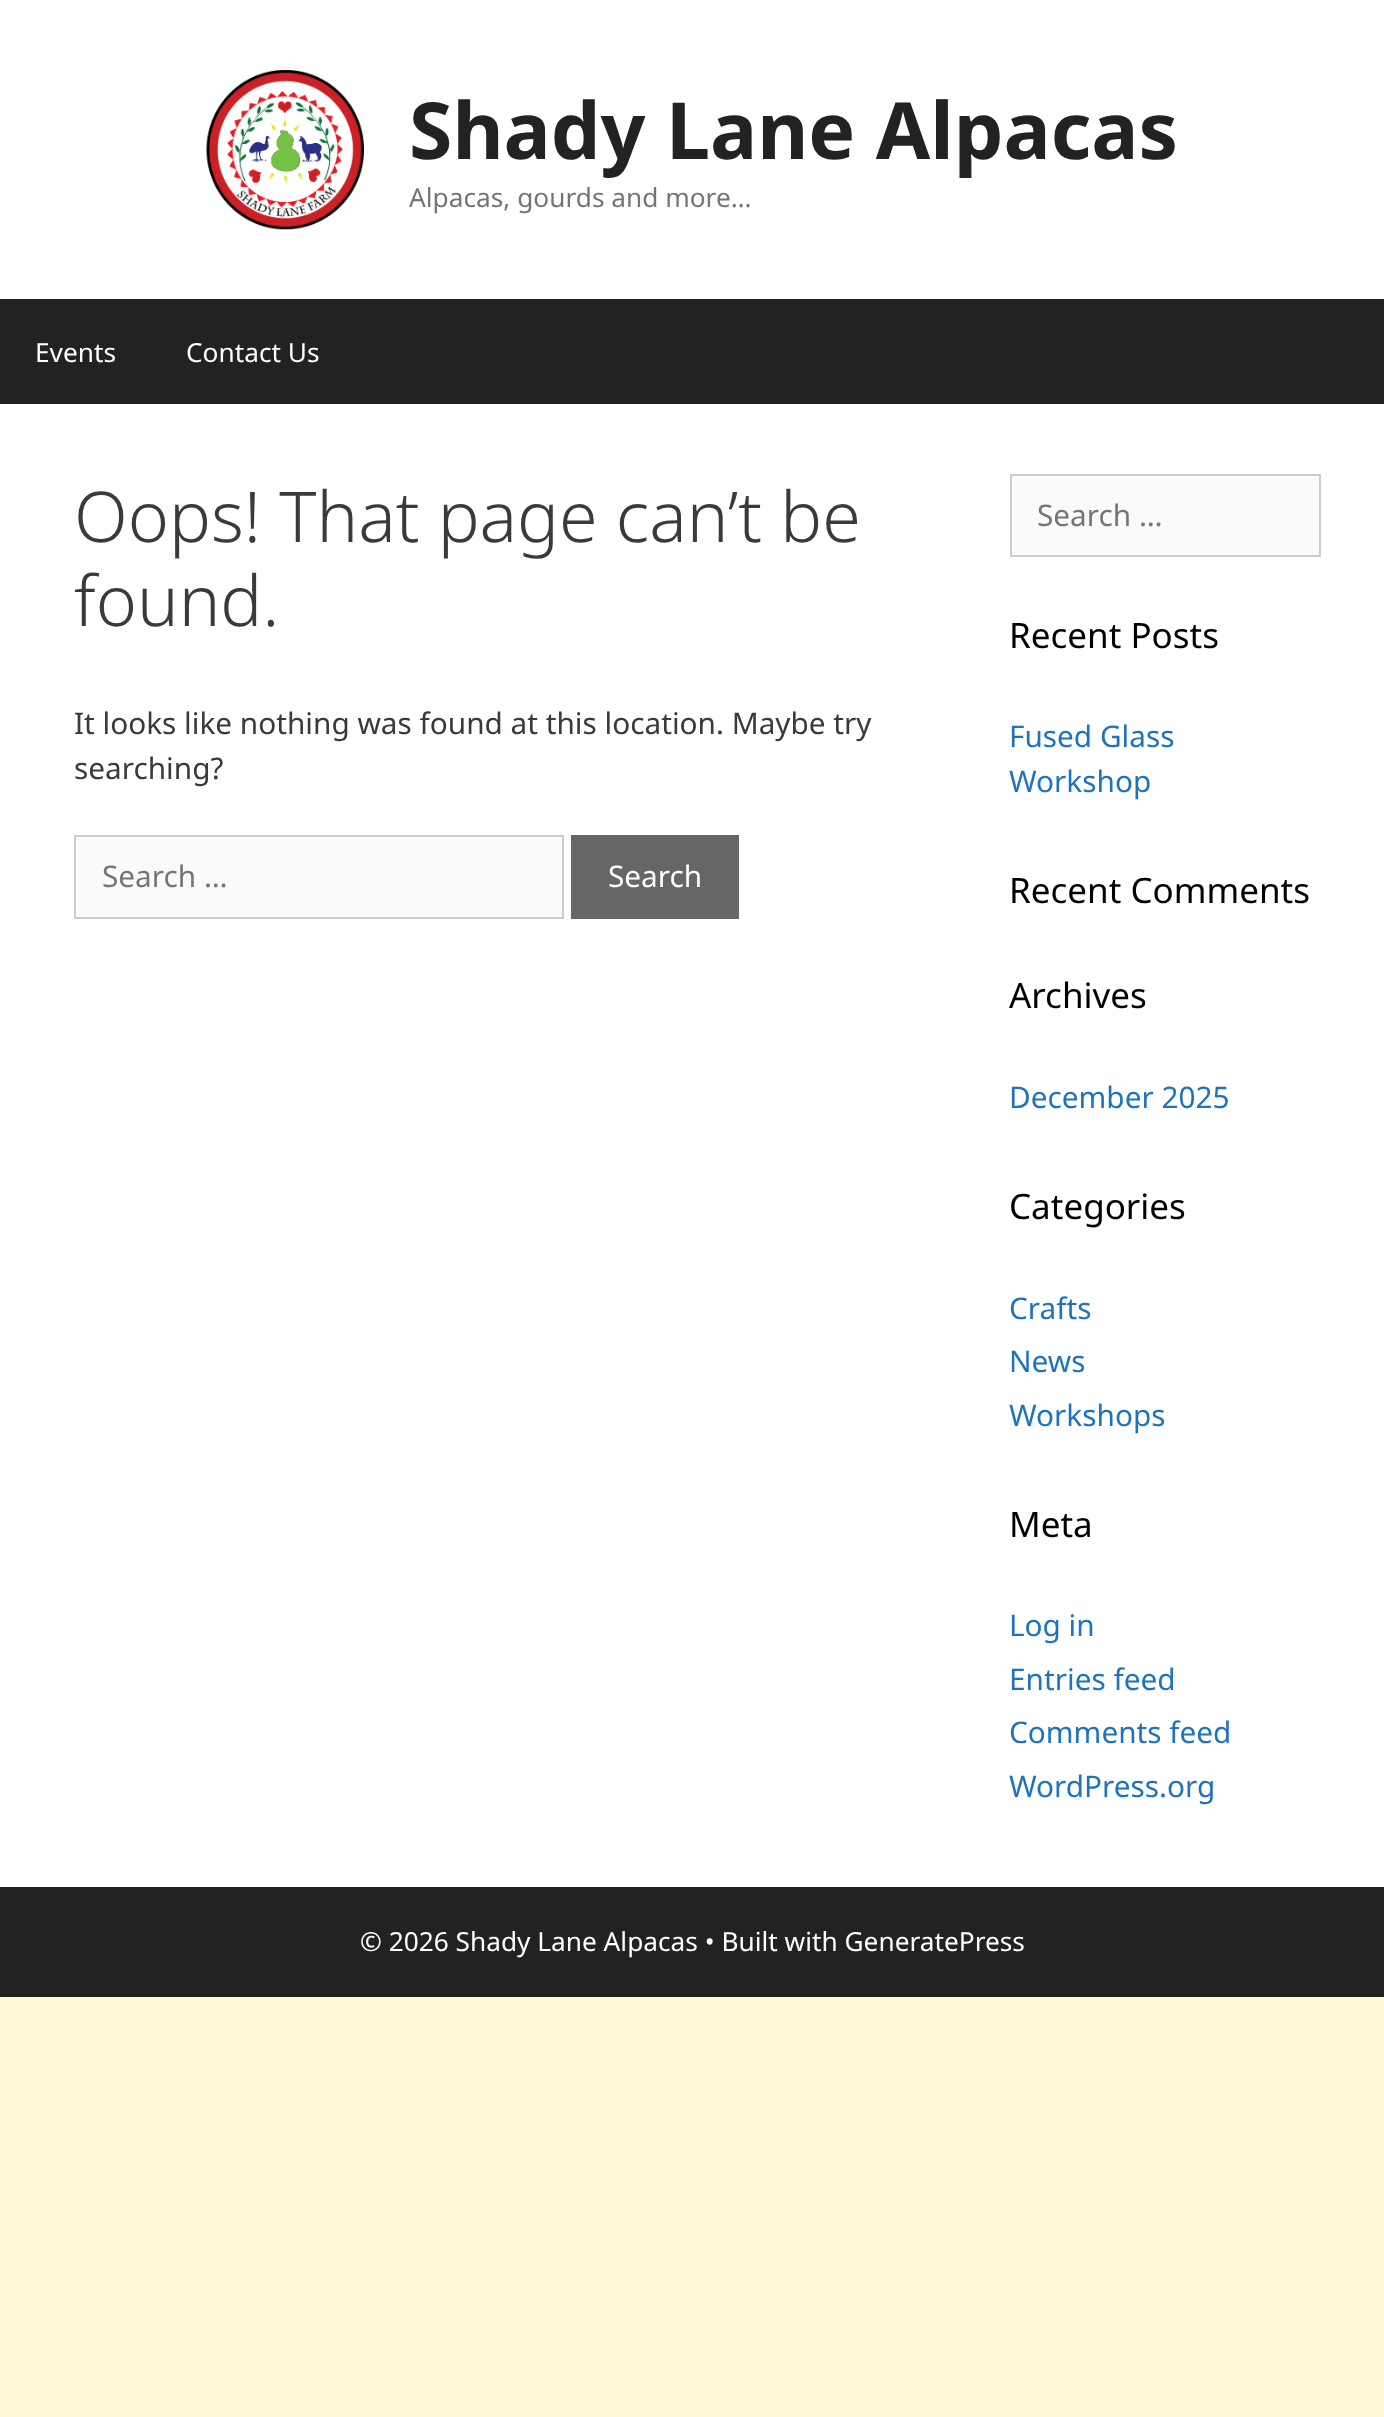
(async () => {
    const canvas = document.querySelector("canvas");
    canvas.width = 1384;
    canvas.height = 2417;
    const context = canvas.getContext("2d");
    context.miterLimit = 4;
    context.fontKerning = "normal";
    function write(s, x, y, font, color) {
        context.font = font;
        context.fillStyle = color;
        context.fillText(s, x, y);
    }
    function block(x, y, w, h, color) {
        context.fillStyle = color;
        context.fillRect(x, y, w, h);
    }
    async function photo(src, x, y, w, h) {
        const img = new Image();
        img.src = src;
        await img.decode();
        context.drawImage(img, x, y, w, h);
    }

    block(0, 0, 1384, 2417, "rgb(255, 248, 213)");
    block(0, 0, 1384, 299, "rgb(255, 255, 255)");
    await photo("media/1.png", 206, 70, 158, 160);
    write("Shady Lane Alpacas", 409, 159, "bold 78.75px Noto Sans", "rgb(34, 34, 34)");
    write("Alpacas, gourds and more…", 409, 207, "26.25px Noto Sans", "rgb(117, 117, 117)");
    block(0, 299, 1384, 105, "rgb(34, 34, 34)");
    write("Events", 35, 362, "26.25px Noto Sans", "rgb(255, 255, 255)");
    write("Contact Us", 186, 362, "26.25px Noto Sans", "rgb(255, 255, 255)");
    block(0, 404, 1384, 1483, "rgb(255, 255, 255)");
    write("Oops! That page can’t be", 74, 542, "300 70px Noto Sans", "rgb(58, 58, 58)");
    write("found.", 74, 626, "300 70px Noto Sans", "rgb(58, 58, 58)");
    write("It looks like nothing was found at this location. Maybe try", 74, 734, "29.75px Noto Sans", "rgb(58, 58, 58)");
    write("searching?", 74, 779, "29.75px Noto Sans", "rgb(58, 58, 58)");
    context.fillStyle = "rgb(250, 250, 250)";
    context.beginPath();
    context.rect(75, 836, 488, 82);
    context.fill();
    context.strokeStyle = "rgb(204, 204, 204)";
    context.lineWidth = 2;
    context.stroke();
    write("Search …", 102, 887, "29.75px Noto Sans", "rgb(117, 117, 117)");
    block(571, 835, 168, 84, "rgb(102, 102, 102)");
    write("Search", 608, 887, "29.75px Noto Sans", "rgb(255, 255, 255)");
    context.fillStyle = "rgb(250, 250, 250)";
    context.beginPath();
    context.rect(1011, 475, 309, 81);
    context.fill();
    context.stroke();
    write("Search …", 1037, 526, "29.75px Noto Sans", "rgb(117, 117, 117)");
    write("Recent Posts", 1009, 648, "35px Noto Sans", "rgb(0, 0, 0)");
    write("Fused Glass", 1009, 747, "29.75px Noto Sans", "rgb(30, 115, 190)");
    write("Workshop", 1009, 792, "29.75px Noto Sans", "rgb(30, 115, 190)");
    write("Recent Comments", 1009, 903, "35px Noto Sans", "rgb(0, 0, 0)");
    write("Archives", 1009, 1008, "35px Noto Sans", "rgb(0, 0, 0)");
    write("December 2025", 1009, 1108, "29.75px Noto Sans", "rgb(30, 115, 190)");
    write("Categories", 1009, 1219, "35px Noto Sans", "rgb(0, 0, 0)");
    write("Crafts", 1009, 1319, "29.75px Noto Sans", "rgb(30, 115, 190)");
    write("News", 1009, 1372, "29.75px Noto Sans", "rgb(30, 115, 190)");
    write("Workshops", 1009, 1426, "29.75px Noto Sans", "rgb(30, 115, 190)");
    write("Meta", 1009, 1537, "35px Noto Sans", "rgb(0, 0, 0)");
    write("Log in", 1009, 1636, "29.75px Noto Sans", "rgb(30, 115, 190)");
    write("Entries feed", 1009, 1690, "29.75px Noto Sans", "rgb(30, 115, 190)");
    write("Comments feed", 1009, 1743, "29.75px Noto Sans", "rgb(30, 115, 190)");
    write("WordPress.org", 1009, 1797, "29.75px Noto Sans", "rgb(30, 115, 190)");
    block(0, 1887, 1384, 110, "rgb(34, 34, 34)");
    write("© 2026 Shady Lane Alpacas • Built with GeneratePress", 360, 1951, "26.25px Noto Sans", "rgb(255, 255, 255)");
})();
